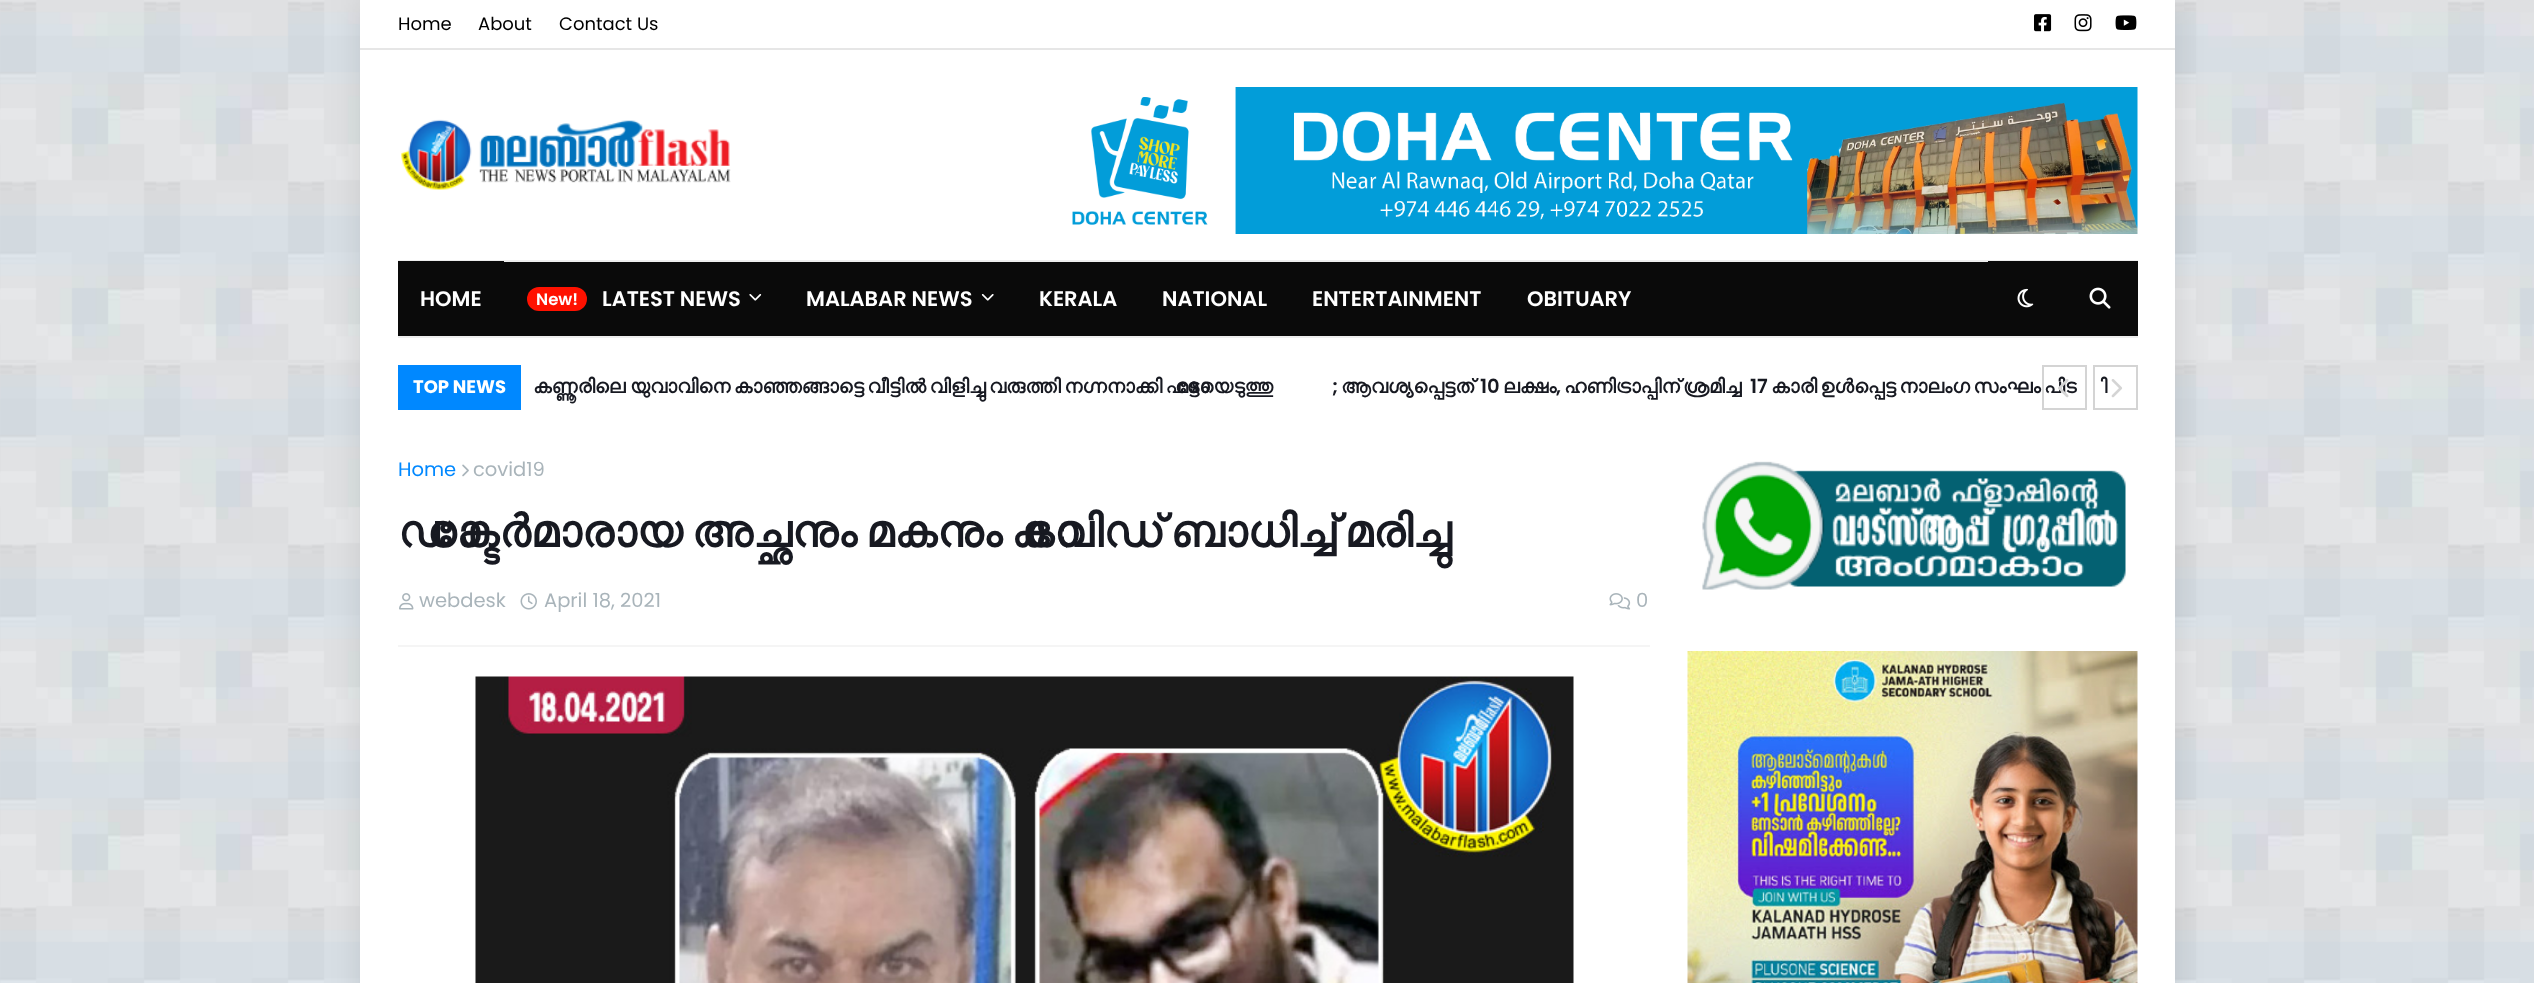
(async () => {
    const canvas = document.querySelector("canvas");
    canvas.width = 2534;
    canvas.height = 983;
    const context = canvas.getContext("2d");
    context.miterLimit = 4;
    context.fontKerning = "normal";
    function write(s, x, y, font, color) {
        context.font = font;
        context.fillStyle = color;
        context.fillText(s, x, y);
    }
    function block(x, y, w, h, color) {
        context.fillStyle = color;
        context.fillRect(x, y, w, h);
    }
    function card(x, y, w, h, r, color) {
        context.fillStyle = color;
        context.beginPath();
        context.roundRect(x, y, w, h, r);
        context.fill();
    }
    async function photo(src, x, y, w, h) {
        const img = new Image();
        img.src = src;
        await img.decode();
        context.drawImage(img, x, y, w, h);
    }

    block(0, 0, 2534, 983, "rgb(255, 255, 255)");
    await photo("media/1.png", 0, 0, 2534, 983);
    context.fillStyle = "rgba(0, 0, 0, 0.1)";
    context.filter = "blur(15px)";
    context.beginPath();
    context.rect(360, 0, 1815, 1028);
    context.fill();
    context.filter = "none";
    block(360, 0, 1815, 983, "rgb(255, 255, 255)");
    block(360, 48, 1815, 2, "rgb(230, 230, 230)");
    write("Home", 398, 30, "18px Poppins", "rgb(0, 0, 0)");
    write("About", 478, 30, "18px Poppins", "rgb(0, 0, 0)");
    write("Contact Us", 559, 30, "18px Poppins", "rgb(0, 0, 0)");
    await photo("media/2.png", 2034, 14, 18, 18);
    await photo("media/3.png", 2074, 14, 18, 18);
    await photo("media/4.png", 2115, 15, 22, 15);
    await photo("media/5.png", 401, 119, 330, 71);
    await photo("media/6.png", 1072, 87, 1066, 147);
    block(504, 262, 1484, 74, "rgb(10, 10, 10)");
    block(398, 260, 1740, 2, "rgb(238, 238, 238)");
    block(398, 336, 1740, 2, "rgb(238, 238, 238)");
    block(1988, 261, 150, 75, "rgb(10, 10, 10)");
    await photo("media/7.png", 2017, 288, 17, 20);
    block(398, 261, 106, 75, "rgb(10, 10, 10)");
    write("HOME", 420, 306, "600 21px Poppins", "rgb(255, 255, 255)");
    card(527, 287, 60, 24, 12, "rgb(255, 17, 0)");
    write("New!", 536, 305, "600 16.5px Poppins", "rgb(255, 255, 255)");
    write("LATEST NEWS", 602, 306, "600 21px Poppins", "rgb(255, 255, 255)");
    await photo("media/8.png", 749, 294, 13, 7);
    write("MALABAR NEWS", 806, 306, "600 21px Poppins", "rgb(255, 255, 255)");
    await photo("media/9.png", 981, 294, 13, 7);
    write("KERALA", 1039, 306, "600 21px Poppins", "rgb(255, 255, 255)");
    write("NATIONAL", 1162, 306, "600 21px Poppins", "rgb(255, 255, 255)");
    write("ENTERTAINMENT", 1312, 306, "600 21px Poppins", "rgb(255, 255, 255)");
    write("OBITUARY", 1527, 306, "600 21px Poppins", "rgb(255, 255, 255)");
    await photo("media/10.png", 2089, 287, 22, 22);
    block(398, 365, 123, 45, "rgb(0, 136, 255)");
    write("TOP NEWS", 413, 393, "bold 18px Poppins", "rgb(255, 255, 255)");
    context.wordSpacing = "-1.5px";
    write("കാരി ഉൾപ്പെട്ട നാലംഗ സംഘം പിട", 1771, 393, "bold 19.5px FreeSans", "rgb(23, 25, 33)");
    context.strokeStyle = "rgb(212, 212, 212)";
    context.lineWidth = 2;
    context.strokeRect(2043, 366, 43, 43);
    await photo("media/11.png", 2058, 379, 11, 19);
    context.strokeRect(2094, 366, 43, 43);
    write("ി", 2103, 393, "bold 19.5px FreeSans", "rgb(23, 25, 33)");
    await photo("media/12.png", 2111, 379, 12, 19);
    context.save();
    context.beginPath();
    context.rect(533, 365, 1593, 45);
    context.clip();
    context.wordSpacing = "0px";
    write("കണ്ണൂരിലെ", 533, 393, "bold 19.5px FreeSans", "rgb(23, 25, 33)");
    context.restore();
    write("യുവാവിനെ കാഞ്ഞങ്ങാട്ടെ വീട്ടിൽ വിളിച്ചു വരുത്തി നഗ്നനാക്കി ഫോട്ടോയെടുത്തു", 630, 393, "bold 19.5px FreeSans", "rgb(23, 25, 33)");
    context.wordSpacing = "0px";
    write(";", 1332, 393, "600 19.5px Poppins", "rgb(23, 25, 33)");
    write("ആവശ്യപ്പെട്ടത്", 1341, 393, "bold 19.5px FreeSans", "rgb(23, 25, 33)");
    write("10", 1480, 393, "600 19.5px Poppins", "rgb(23, 25, 33)");
    write("ലക്ഷം", 1503, 393, "bold 19.5px FreeSans", "rgb(23, 25, 33)");
    write(",", 1556, 393, "600 19.5px Poppins", "rgb(23, 25, 33)");
    context.wordSpacing = "-1.5px";
    write("ഹണിട്രാപ്പിന് ശ്രമിച്ച", 1564, 393, "bold 19.5px FreeSans", "rgb(23, 25, 33)");
    context.wordSpacing = "0px";
    write("17", 1750, 393, "600 19.5px Poppins", "rgb(23, 25, 33)");
    block(398, 645, 1252, 2, "rgb(245, 245, 245)");
    write("Home", 398, 476, "19.5px Poppins", "rgb(0, 136, 255)");
    await photo("media/13.png", 462, 464, 7, 13);
    write("covid19", 473, 476, "19.5px Poppins", "rgb(169, 180, 186)");
    context.wordSpacing = "-2.25px";
    write("ഡോക്ടർമാരായ അച്ഛനും മകനും കോവിഡ് ബാധിച്ച് മരിച്ചു", 398, 547, "bold 45px FreeSans", "rgb(23, 25, 33)");
    await photo("media/14.png", 399, 593, 15, 17);
    context.wordSpacing = "0px";
    write("webdesk", 419, 607, "19.5px Poppins", "rgb(169, 180, 186)");
    await photo("media/15.png", 520, 593, 17, 17);
    write("April 18, 2021", 544, 607, "19.5px Poppins", "rgb(169, 180, 186)");
    await photo("media/16.png", 1609, 593, 22, 17);
    write("0", 1636, 607, "19.5px Poppins", "rgb(169, 180, 186)");
    await photo("media/17.png", 475, 676, 1099, 307);
    await photo("media/18.png", 1702, 461, 424, 129);
    await photo("media/19.png", 1687, 651, 451, 332);
})();
